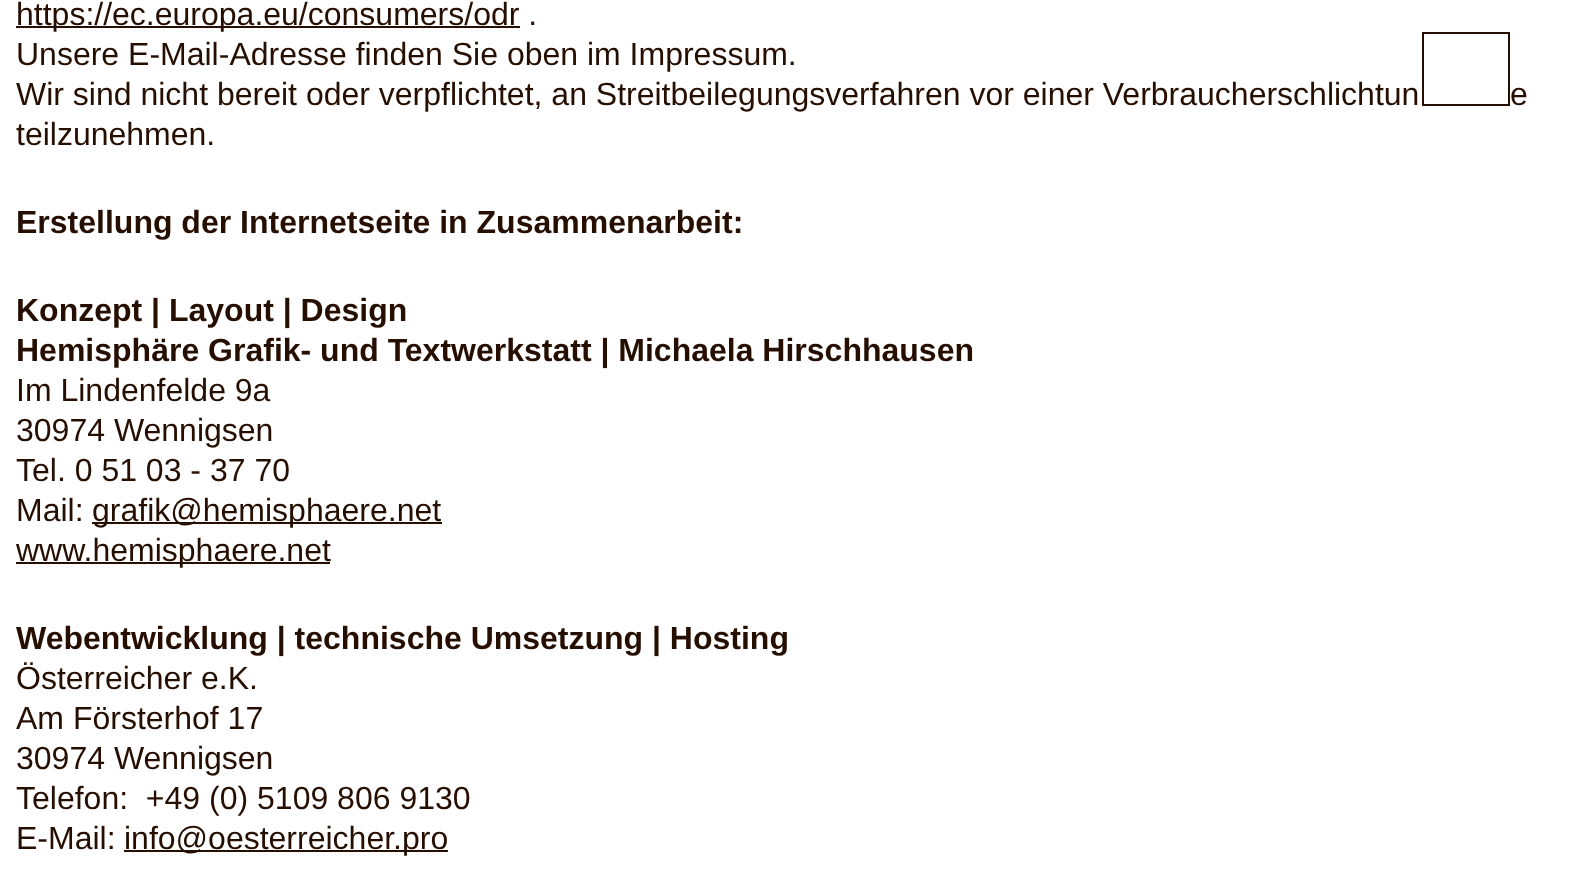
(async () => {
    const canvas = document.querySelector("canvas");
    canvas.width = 1577;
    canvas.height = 883;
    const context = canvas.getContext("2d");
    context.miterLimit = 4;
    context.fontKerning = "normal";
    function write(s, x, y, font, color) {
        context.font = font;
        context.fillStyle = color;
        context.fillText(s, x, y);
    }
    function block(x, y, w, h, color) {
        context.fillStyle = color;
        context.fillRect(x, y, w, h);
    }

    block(0, 0, 1577, 883, "rgb(255, 255, 255)");
    block(16, 26, 504, 2, "rgb(38, 15, 0)");
    write("https://ec.europa.eu/consumers/odr .", 16, 25, "32px Liberation Sans", "rgb(38, 15, 0)");
    write("Unsere E-Mail-Adresse finden Sie oben im Impressum.", 16, 65, "32px Liberation Sans", "rgb(38, 15, 0)");
    write("Wir sind nicht bereit oder verpflichtet, an Streitbeilegungsverfahren vor einer Verbraucherschlichtun", 16, 105, "32px Liberation Sans", "rgb(38, 15, 0)");
    write("e", 1510, 105, "32px Liberation Sans", "rgb(38, 15, 0)");
    write("teilzunehmen.", 16, 145, "32px Liberation Sans", "rgb(38, 15, 0)");
    write("Erstellung der Internetseite in Zusammenarbeit:", 16, 233, "bold 32px Liberation Sans", "rgb(38, 15, 0)");
    write("Konzept | Layout | Design", 16, 321, "bold 32px Liberation Sans", "rgb(38, 15, 0)");
    write("Hemisphäre Grafik- und Textwerkstatt | Michaela Hirschhausen", 16, 361, "bold 32px Liberation Sans", "rgb(38, 15, 0)");
    write("Im Lindenfelde 9a", 16, 401, "32px Liberation Sans", "rgb(38, 15, 0)");
    write("30974 Wennigsen", 16, 441, "32px Liberation Sans", "rgb(38, 15, 0)");
    write("Tel. 0 51 03 - 37 70", 16, 481, "32px Liberation Sans", "rgb(38, 15, 0)");
    write("Mail:", 16, 521, "32px Liberation Sans", "rgb(38, 15, 0)");
    block(92, 522, 350, 2, "rgb(38, 15, 0)");
    write("grafik@hemisphaere.net", 92, 521, "32px Liberation Sans", "rgb(38, 15, 0)");
    block(16, 562, 314, 2, "rgb(38, 15, 0)");
    write("www.hemisphaere.net", 16, 561, "32px Liberation Sans", "rgb(38, 15, 0)");
    write("Webentwicklung | technische Umsetzung | Hosting", 16, 649, "bold 32px Liberation Sans", "rgb(38, 15, 0)");
    write("Österreicher e.K.", 16, 689, "32px Liberation Sans", "rgb(38, 15, 0)");
    write("Am Försterhof 17", 16, 729, "32px Liberation Sans", "rgb(38, 15, 0)");
    write("30974 Wennigsen", 16, 769, "32px Liberation Sans", "rgb(38, 15, 0)");
    write("Telefon:  +49 (0) 5109 806 9130", 16, 809, "32px Liberation Sans", "rgb(38, 15, 0)");
    write("E-Mail:", 16, 849, "32px Liberation Sans", "rgb(38, 15, 0)");
    block(124, 850, 324, 2, "rgb(38, 15, 0)");
    write("info@oesterreicher.pro", 124, 849, "32px Liberation Sans", "rgb(38, 15, 0)");
    context.strokeStyle = "rgb(38, 15, 0)";
    context.lineWidth = 2;
    context.strokeRect(1423, 33, 86, 72);
})();
